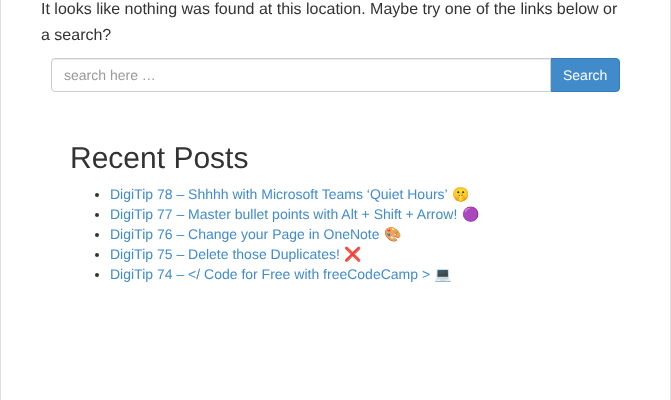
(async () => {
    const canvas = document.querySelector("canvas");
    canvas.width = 671;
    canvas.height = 400;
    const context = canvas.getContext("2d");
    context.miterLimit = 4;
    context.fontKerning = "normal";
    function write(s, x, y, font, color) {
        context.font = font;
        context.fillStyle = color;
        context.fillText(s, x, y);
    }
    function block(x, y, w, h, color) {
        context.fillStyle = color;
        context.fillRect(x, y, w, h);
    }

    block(0, 0, 671, 400, "rgb(255, 255, 255)");
    context.strokeStyle = "rgb(221, 221, 221)";
    context.strokeRect(0.5, -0.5, 670, 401);
    write("It looks like nothing was found at this location. Maybe try one of the links below or", 41, 14, "16px Liberation Sans", "rgb(51, 51, 51)");
    write("a search?", 41, 40, "16px Liberation Sans", "rgb(51, 51, 51)");
    context.fillStyle = "rgb(66, 139, 202)";
    context.beginPath();
    context.roundRect(550.5, 58.5, 69, 33, [0, 3.5, 3.5, 0]);
    context.fill();
    context.strokeStyle = "rgb(53, 126, 189)";
    context.stroke();
    context.fillStyle = "rgb(255, 255, 255)";
    context.beginPath();
    context.roundRect(51, 58, 500, 34, [4, 0, 0, 4]);
    context.fill();
    context.fillStyle = "rgb(236, 236, 236)";
    context.beginPath();
    context.moveTo(55, 60);
    context.lineTo(550, 60);
    context.lineTo(550, 59);
    context.lineTo(55, 59);
    context.bezierCurveTo(53, 59, 52, 61, 52, 63);
    context.bezierCurveTo(52, 61, 53, 60, 55, 60);
    context.closePath();
    context.fill();
    context.beginPath();
    context.roundRect(51.5, 58.5, 499, 33, [3.5, 0, 0, 3.5]);
    context.strokeStyle = "rgb(204, 204, 204)";
    context.stroke();
    write("search here …", 64, 80, "14px Liberation Sans", "rgb(153, 153, 153)");
    write("Search", 563, 80, "14px Liberation Sans", "rgb(255, 255, 255)");
    write("Recent Posts", 70, 168, "30px Liberation Sans", "rgb(51, 51, 51)");
    context.beginPath();
    context.arc(97, 195, 2, 0, Math.PI * 2);
    context.fill();
    write("DigiTip 78 – Shhhh with Microsoft Teams ‘Quiet Hours’", 110, 199, "14px Liberation Sans", "rgb(66, 139, 202)");
    write("🤫", 452, 199, "14px Noto Color Emoji", "rgb(66, 139, 202)");
    context.fillStyle = "rgb(51, 51, 51)";
    context.beginPath();
    context.arc(97, 215, 2, 0, Math.PI * 2);
    context.fill();
    write("DigiTip 77 – Master bullet points with Alt + Shift + Arrow!", 110, 219, "14px Liberation Sans", "rgb(66, 139, 202)");
    write("🟣", 462, 219, "14px Noto Color Emoji", "rgb(66, 139, 202)");
    context.fillStyle = "rgb(51, 51, 51)";
    context.beginPath();
    context.arc(97, 235, 2, 0, Math.PI * 2);
    context.fill();
    write("DigiTip 76 – Change your Page in OneNote", 110, 239, "14px Liberation Sans", "rgb(66, 139, 202)");
    write("🎨", 384, 239, "14px Noto Color Emoji", "rgb(66, 139, 202)");
    context.fillStyle = "rgb(51, 51, 51)";
    context.beginPath();
    context.arc(97, 255, 2, 0, Math.PI * 2);
    context.fill();
    write("DigiTip 75 – Delete those Duplicates!", 110, 259, "14px Liberation Sans", "rgb(66, 139, 202)");
    write("❌", 344, 259, "14px Noto Color Emoji", "rgb(66, 139, 202)");
    context.fillStyle = "rgb(51, 51, 51)";
    context.beginPath();
    context.arc(97, 275, 2, 0, Math.PI * 2);
    context.fill();
    write("DigiTip 74 – <\/ Code for Free with freeCodeCamp >", 110, 279, "14px Liberation Sans", "rgb(66, 139, 202)");
    write("💻", 434, 279, "14px Noto Color Emoji", "rgb(66, 139, 202)");
})();
